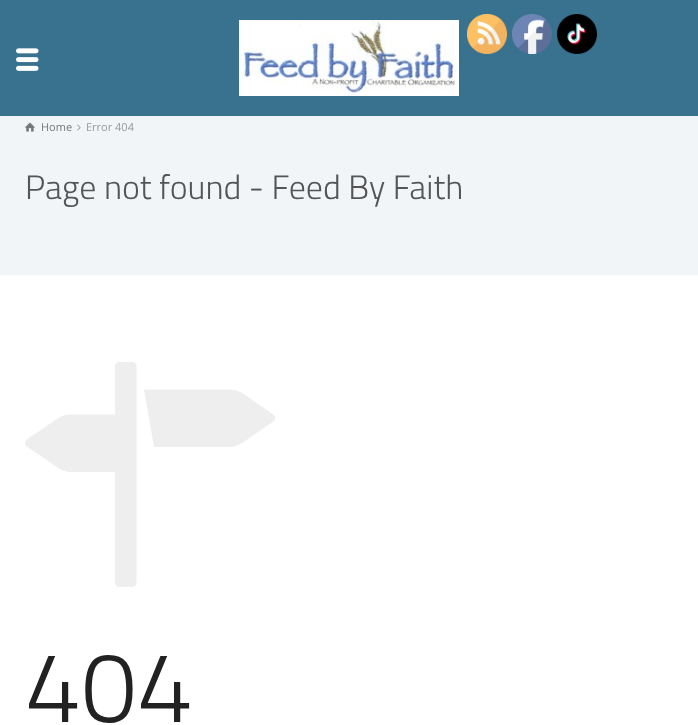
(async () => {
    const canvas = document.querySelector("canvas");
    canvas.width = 698;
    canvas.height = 725;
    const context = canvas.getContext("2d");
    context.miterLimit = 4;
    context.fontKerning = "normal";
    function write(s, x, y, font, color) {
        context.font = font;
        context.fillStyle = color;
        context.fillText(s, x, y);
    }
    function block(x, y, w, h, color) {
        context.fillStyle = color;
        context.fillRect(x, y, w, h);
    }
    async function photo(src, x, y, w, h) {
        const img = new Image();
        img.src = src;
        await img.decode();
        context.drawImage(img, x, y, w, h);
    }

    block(0, 0, 698, 725, "rgb(56, 114, 143)");
    await photo("media/1.png", 467, 14, 40, 40);
    await photo("media/2.png", 512, 14, 40, 40);
    await photo("media/3.png", 557, 14, 40, 40);
    await photo("media/4.png", 16, 48, 23, 23);
    await photo("media/5.png", 239, 20, 220, 76);
    block(0, 116, 698, 159, "rgb(241, 245, 248)");
    await photo("media/6.png", 25, 122, 10, 10);
    write("Home", 41, 131, "11px Open Sans", "rgb(119, 119, 119)");
    await photo("media/7.png", 77, 124, 4, 7);
    write("Error 404", 86, 131, "11px Open Sans", "rgb(153, 153, 153)");
    write("Page not found - Feed By Faith", 25, 199, "300 34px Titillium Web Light", "rgb(85, 85, 85)");
    block(0, 275, 698, 450, "rgb(255, 255, 255)");
    await photo("media/8.png", 25, 362, 250, 225);
    write("404", 25, 722, "300 100px Titillium Web Light", "rgb(34, 34, 34)");
})();
